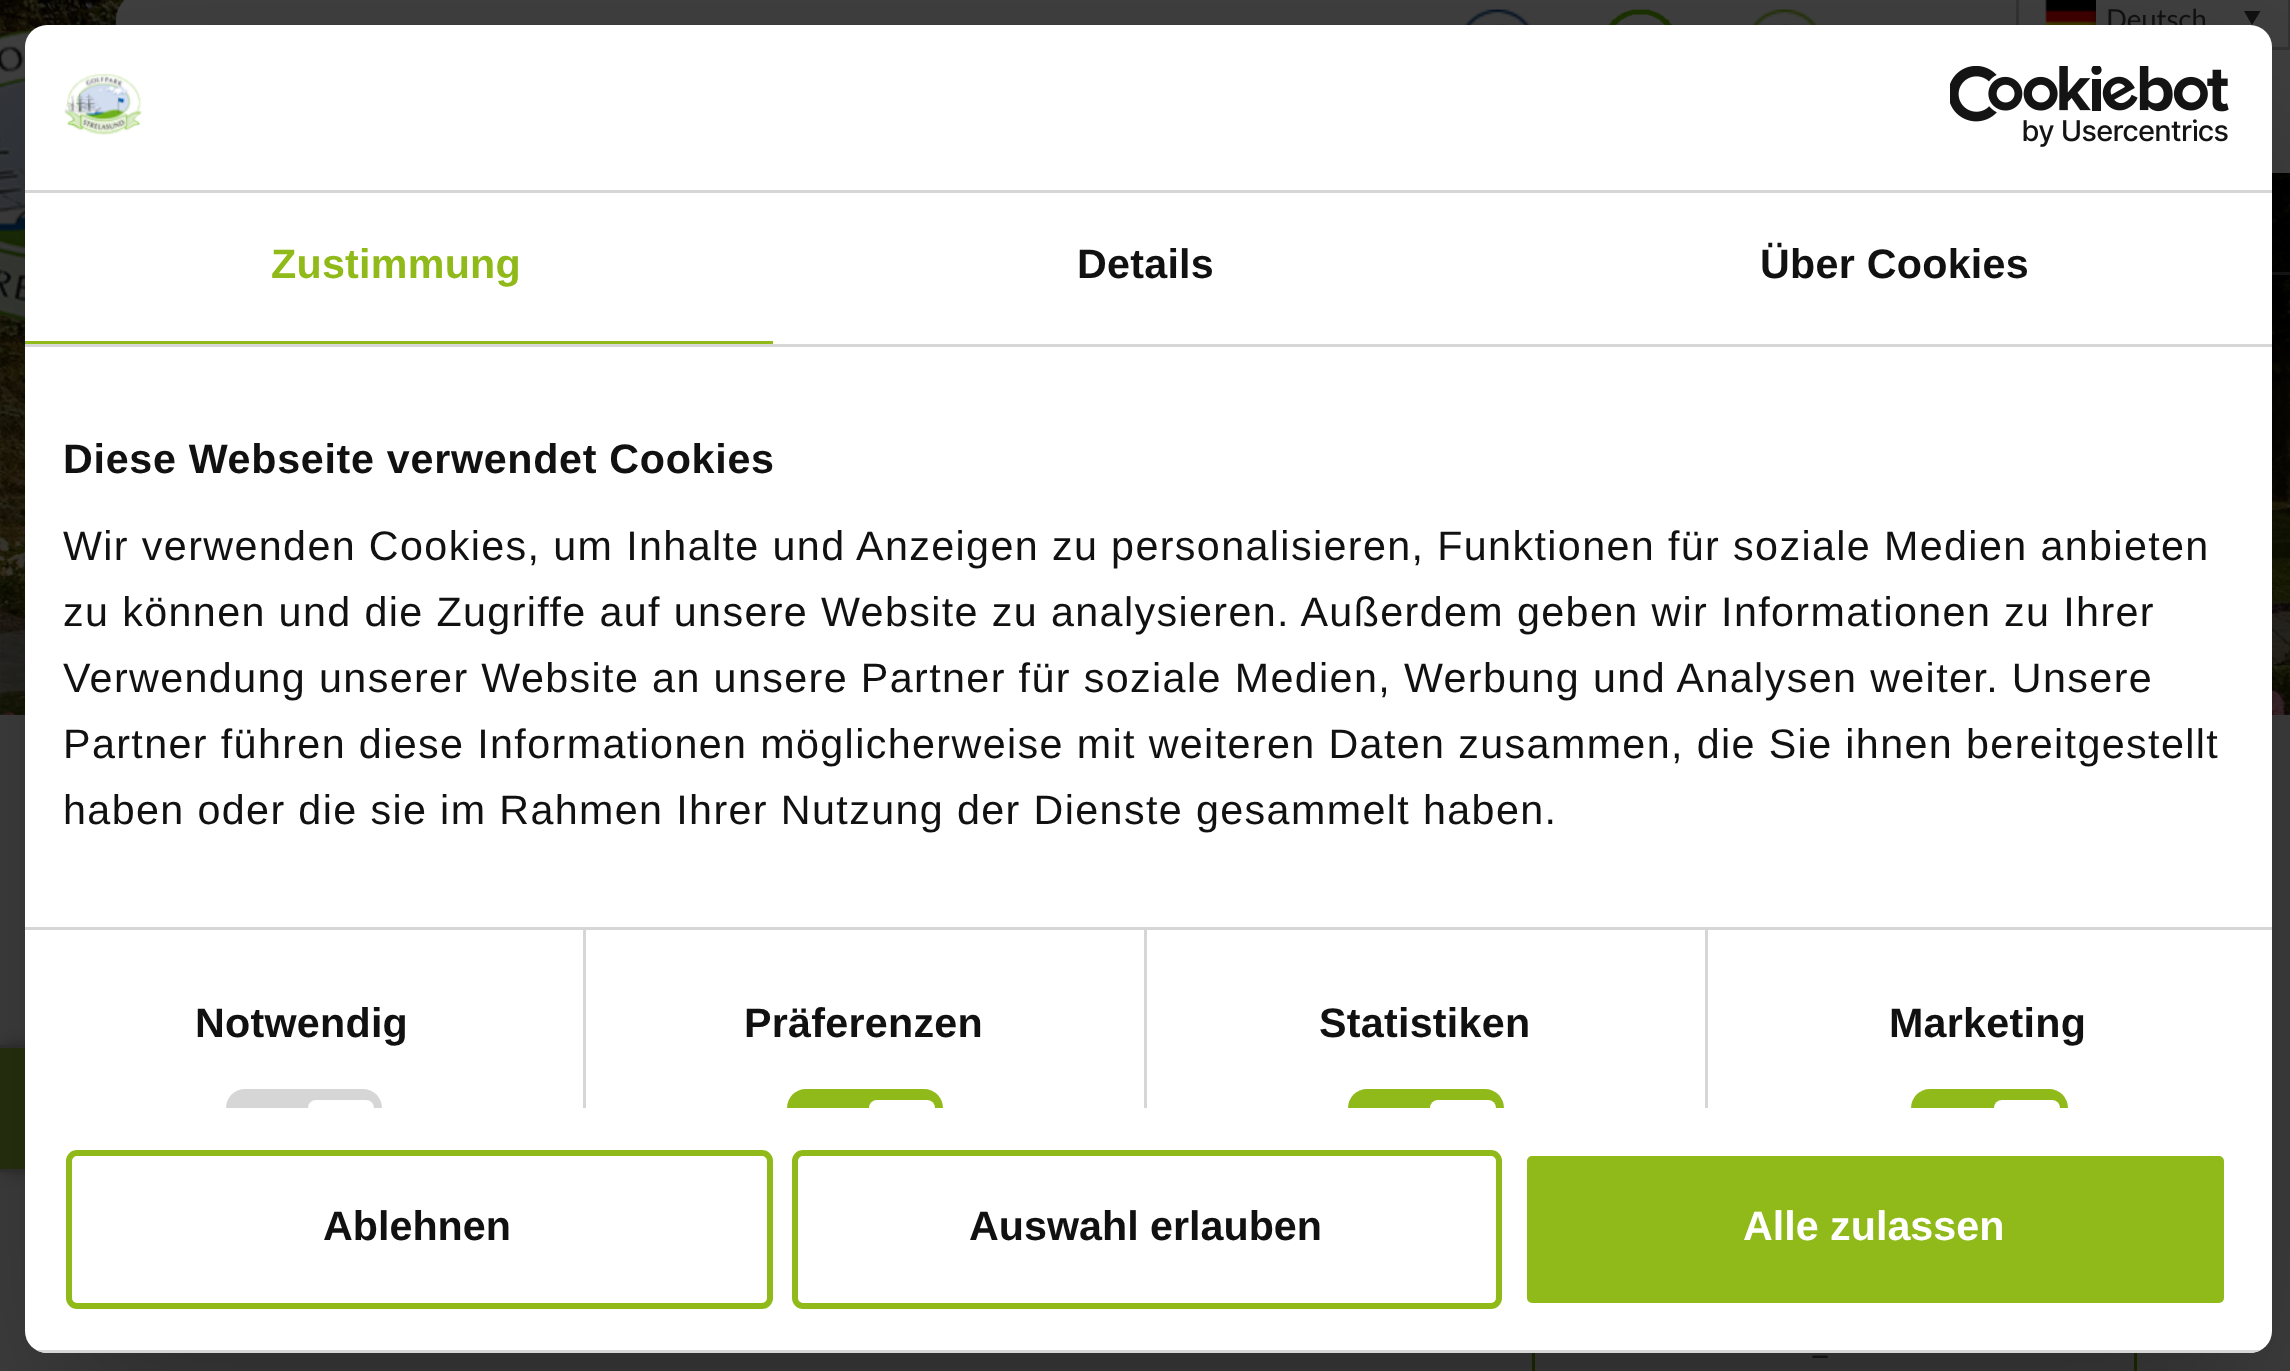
(async () => {
    const canvas = document.querySelector("canvas");
    canvas.width = 2290;
    canvas.height = 1371;
    const context = canvas.getContext("2d");
    context.miterLimit = 4;
    context.fontKerning = "normal";
    function write(s, x, y, font, color) {
        context.font = font;
        context.fillStyle = color;
        context.fillText(s, x, y);
    }
    function block(x, y, w, h, color) {
        context.fillStyle = color;
        context.fillRect(x, y, w, h);
    }
    function card(x, y, w, h, r, color) {
        context.fillStyle = color;
        context.beginPath();
        context.roundRect(x, y, w, h, r);
        context.fill();
    }
    async function photo(src, x, y, w, h) {
        const img = new Image();
        img.src = src;
        await img.decode();
        context.drawImage(img, x, y, w, h);
    }

    block(0, 0, 2290, 1371, "rgb(64, 64, 64)");
    await photo("media/1.png", 0, 0, 2290, 715);
    block(2272, 173, 18, 100, "rgba(0, 0, 0, 0.4)");
    block(2272, 272, 18, 3, "rgba(52, 52, 52, 0.4)");
    await photo("media/2.png", 0, 28, 36, 294);
    card(116, -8, 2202, 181, 28, "rgb(64, 64, 64)");
    await photo("media/3.png", 1464, 9, 67, 16);
    await photo("media/4.png", 1608, 9, 65, 16);
    await photo("media/5.png", 1751, 9, 67, 16);
    context.strokeStyle = "rgb(51, 51, 51)";
    context.lineWidth = 3;
    context.strokeRect(2017.5, -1.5, 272, 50);
    await photo("media/6.png", 2045, 0, 51, 25);
    write("Deutsch", 2106, 29, "27.5px Lato", "rgb(17, 17, 17)");
    context.beginPath();
    context.moveTo(2244, 11);
    context.lineTo(2260.5, 11);
    context.lineTo(2252, 25);
    context.closePath();
    context.fill();
    context.save();
    context.beginPath();
    context.moveTo(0, 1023);
    context.lineTo(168, 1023);
    context.lineTo(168, 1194);
    context.lineTo(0, 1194);
    context.closePath();
    context.moveTo(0, 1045);
    context.lineTo(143, 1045);
    context.lineTo(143, 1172);
    context.lineTo(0, 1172);
    context.closePath();
    context.clip("evenodd");
    context.fillStyle = "rgba(0, 0, 0, 0.3)";
    context.filter = "blur(7px)";
    context.beginPath();
    context.rect(3, 1045, 143, 127);
    context.fill();
    context.filter = "none";
    context.restore();
    block(0, 1048, 25, 121, "rgba(34, 49, 2, 0.8)");
    block(0, 1045, 25, 3, "rgb(52, 52, 52)");
    block(0, 1169, 25, 3, "rgb(52, 52, 52)");
    context.strokeStyle = "rgb(33, 45, 0)";
    context.strokeRect(1533.5, 969.5, 602, 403);
    write("–", 1809, 1368, "38px Lato", "rgb(26, 26, 26)");
    context.save();
    context.beginPath();
    context.moveTo(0, 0);
    context.lineTo(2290, 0);
    context.lineTo(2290, 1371);
    context.lineTo(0, 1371);
    context.closePath();
    context.moveTo(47, 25);
    context.lineTo(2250, 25);
    context.bezierCurveTo(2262, 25, 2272, 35, 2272, 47);
    context.lineTo(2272, 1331);
    context.bezierCurveTo(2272, 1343, 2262, 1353, 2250, 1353);
    context.lineTo(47, 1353);
    context.bezierCurveTo(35, 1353, 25, 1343, 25, 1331);
    context.lineTo(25, 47);
    context.bezierCurveTo(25, 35, 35, 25, 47, 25);
    context.closePath();
    context.clip("evenodd");
    context.fillStyle = "rgba(0, 0, 0, 0.3)";
    context.filter = "blur(93.5px)";
    context.beginPath();
    context.roundRect(25, 113, 2247, 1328, 22);
    context.fill();
    context.filter = "none";
    context.restore();
    card(25, 25, 2247, 1328, 22, "rgb(255, 255, 255)");
    block(25, 190, 2247, 3, "rgb(214, 214, 214)");
    await photo("media/7.png", 64, 74, 78, 61);
    await photo("media/8.png", 1950, 66, 279, 81);
    block(25, 344, 2247, 3, "rgb(214, 214, 214)");
    block(25, 341, 748, 3, "rgb(144, 186, 25)");
    context.letterSpacing = "0.25px";
    write("Zustimmung", 271, 278, "bold 41.25px Liberation Sans", "rgb(144, 186, 25)");
    write("Details", 1077, 278, "bold 41.25px Liberation Sans", "rgb(17, 17, 17)");
    write("Über Cookies", 1760, 278, "bold 41.25px Liberation Sans", "rgb(17, 17, 17)");
    block(25, 927, 2247, 3, "rgb(214, 214, 214)");
    context.letterSpacing = "0.7px";
    write("Diese Webseite verwendet Cookies", 63, 473, "bold 41.25px Liberation Sans", "rgb(17, 17, 17)");
    context.letterSpacing = "1.38px";
    write("Wir verwenden Cookies, um Inhalte und Anzeigen zu personalisieren, Funktionen für soziale Medien anbieten", 63, 560, "41.25px Liberation Sans", "rgb(17, 17, 17)");
    write("zu können und die Zugriffe auf unsere Website zu analysieren. Außerdem geben wir Informationen zu Ihrer", 63, 626, "41.25px Liberation Sans", "rgb(17, 17, 17)");
    write("Verwendung unserer Website an unsere Partner für soziale Medien, Werbung und Analysen weiter. Unsere", 63, 692, "41.25px Liberation Sans", "rgb(17, 17, 17)");
    write("Partner führen diese Informationen möglicherweise mit weiteren Daten zusammen, die Sie ihnen bereitgestellt", 63, 758, "41.25px Liberation Sans", "rgb(17, 17, 17)");
    write("haben oder die sie im Rahmen Ihrer Nutzung der Dienste gesammelt haben.", 63, 824, "41.25px Liberation Sans", "rgb(17, 17, 17)");
    block(583, 930, 3, 178, "rgb(214, 214, 214)");
    context.letterSpacing = "0.25px";
    write("Notwendig", 195, 1037, "bold 41.25px Liberation Sans", "rgb(17, 17, 17)");
    context.fillStyle = "rgb(214, 214, 214)";
    context.beginPath();
    context.roundRect(226, 1089, 156, 19, [44, 44, 0, 0]);
    context.fill();
    context.fillStyle = "rgb(255, 255, 255)";
    context.beginPath();
    context.roundRect(308, 1100, 66, 8, [33, 33, 0, 0]);
    context.fill();
    block(1144, 930, 3, 178, "rgb(214, 214, 214)");
    write("Präferenzen", 744, 1037, "bold 41.25px Liberation Sans", "rgb(17, 17, 17)");
    context.fillStyle = "rgb(144, 186, 25)";
    context.beginPath();
    context.roundRect(787, 1089, 156, 19, [44, 44, 0, 0]);
    context.fill();
    context.fillStyle = "rgb(255, 255, 255)";
    context.beginPath();
    context.roundRect(869, 1100, 66, 8, [33, 33, 0, 0]);
    context.fill();
    block(1705, 930, 3, 178, "rgb(214, 214, 214)");
    write("Statistiken", 1319, 1037, "bold 41.25px Liberation Sans", "rgb(17, 17, 17)");
    context.fillStyle = "rgb(144, 186, 25)";
    context.beginPath();
    context.roundRect(1348, 1089, 156, 19, [44, 44, 0, 0]);
    context.fill();
    context.fillStyle = "rgb(255, 255, 255)";
    context.beginPath();
    context.roundRect(1430, 1100, 66, 8, [33, 33, 0, 0]);
    context.fill();
    write("Marketing", 1889, 1037, "bold 41.25px Liberation Sans", "rgb(17, 17, 17)");
    context.fillStyle = "rgb(144, 186, 25)";
    context.beginPath();
    context.roundRect(1911, 1089, 157, 19, [44, 44, 0, 0]);
    context.fill();
    context.fillStyle = "rgb(255, 255, 255)";
    context.beginPath();
    context.roundRect(1994, 1100, 66, 8, [33, 33, 0, 0]);
    context.fill();
    context.save();
    context.beginPath();
    context.roundRect(25, 25, 2247, 1328, 22);
    context.clip();
    block(36, 1350, 2225, 3, "rgb(214, 214, 214)");
    context.restore();
    context.beginPath();
    context.roundRect(69, 1153, 701, 153, 8);
    context.strokeStyle = "rgb(144, 186, 25)";
    context.lineWidth = 6;
    context.stroke();
    context.letterSpacing = "0px";
    write("Ablehnen", 323, 1240, "bold 41.25px Liberation Sans", "rgb(17, 17, 17)");
    context.beginPath();
    context.roundRect(795, 1153, 704, 153, 8);
    context.stroke();
    write("Auswahl erlauben", 969, 1240, "bold 41.25px Liberation Sans", "rgb(17, 17, 17)");
    context.fillStyle = "rgb(144, 186, 25)";
    context.beginPath();
    context.roundRect(1524, 1153, 703, 153, 8);
    context.fill();
    context.strokeStyle = "rgb(255, 255, 255)";
    context.stroke();
    write("Alle zulassen", 1743, 1240, "bold 41.25px Liberation Sans", "rgb(255, 255, 255)");
})();
